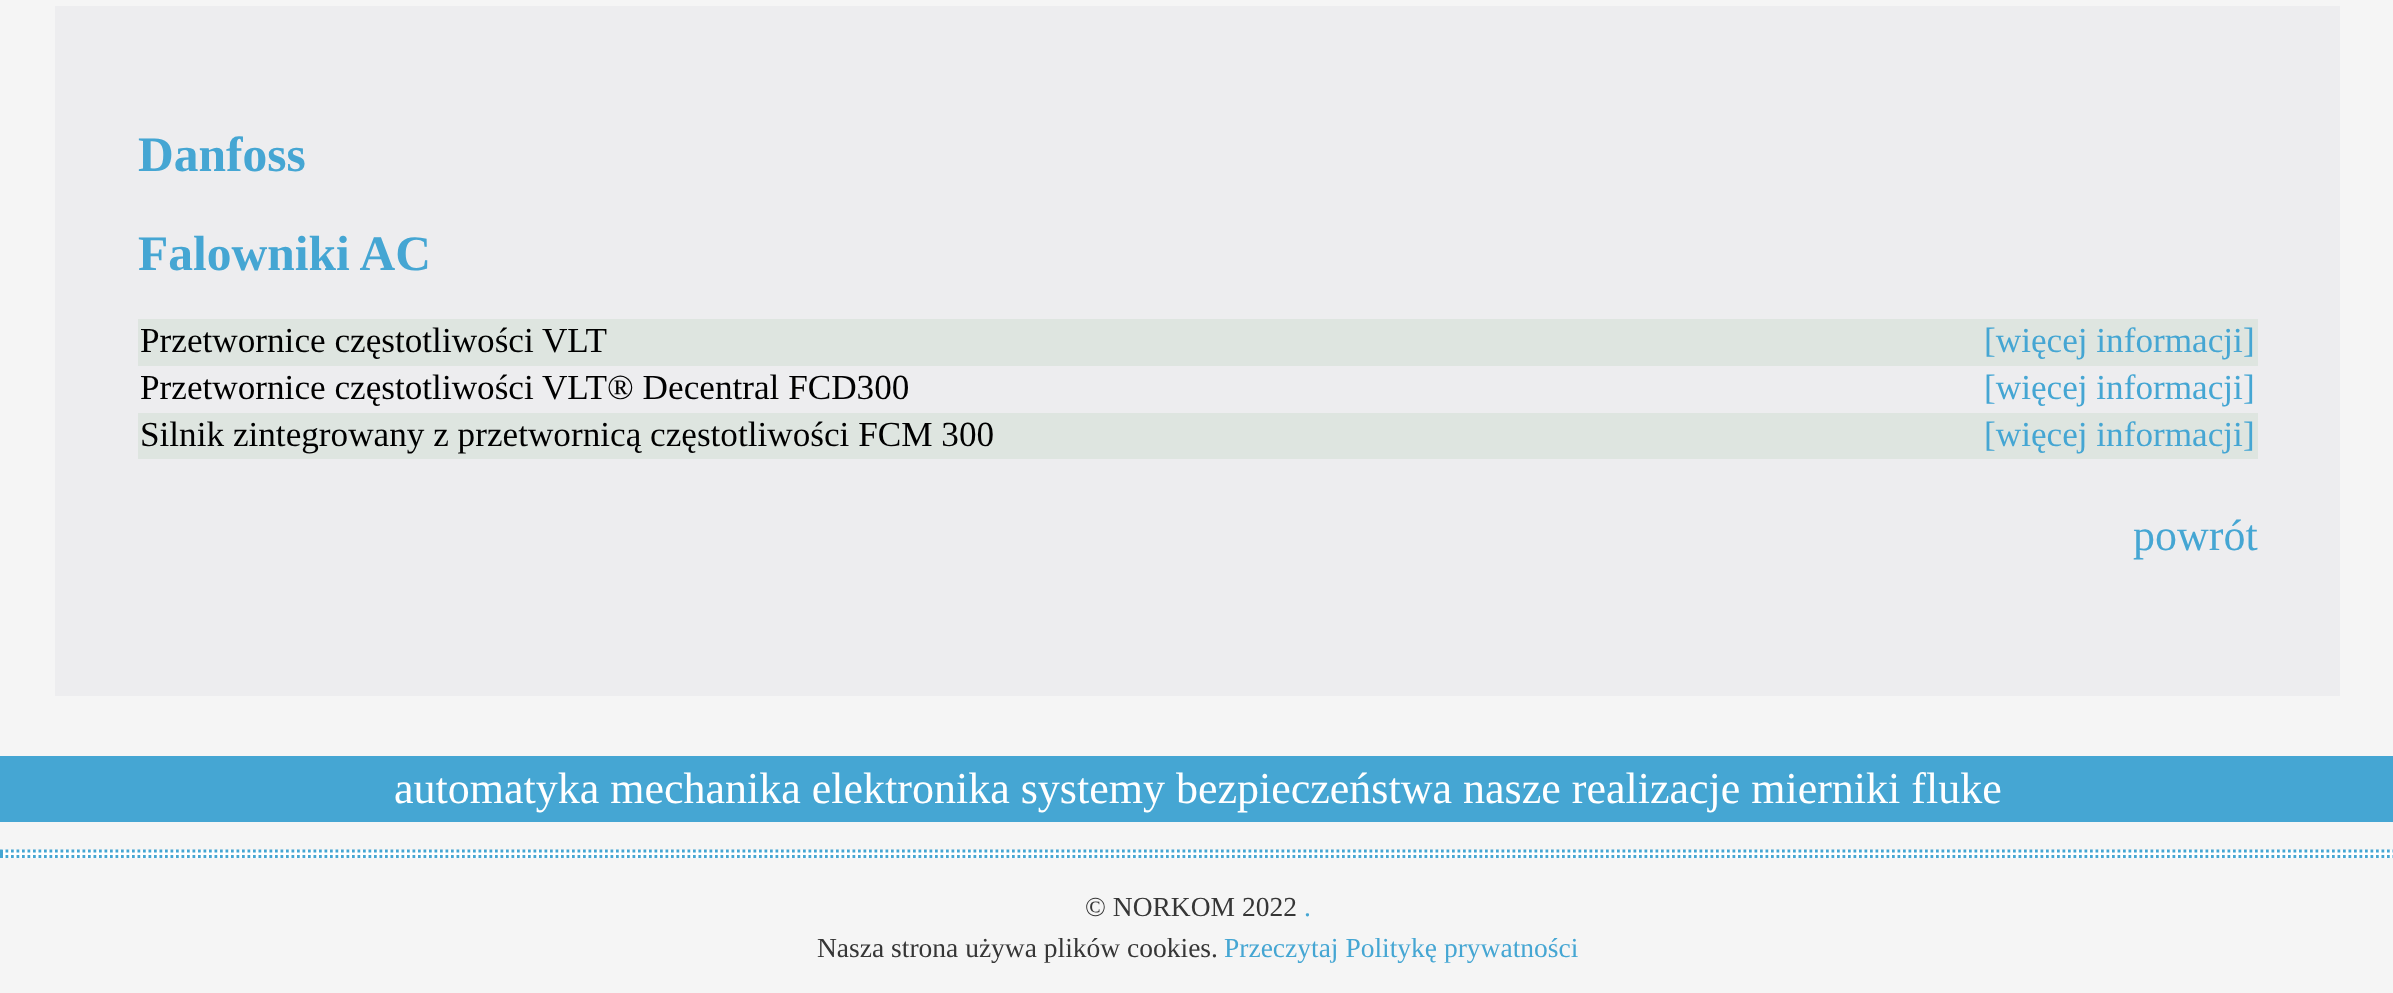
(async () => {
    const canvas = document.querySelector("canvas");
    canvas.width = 2393;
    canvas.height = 993;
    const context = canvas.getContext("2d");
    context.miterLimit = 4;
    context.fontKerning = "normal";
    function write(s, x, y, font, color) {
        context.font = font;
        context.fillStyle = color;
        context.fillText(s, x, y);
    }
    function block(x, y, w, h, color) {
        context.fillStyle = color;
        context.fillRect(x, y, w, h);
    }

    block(0, 0, 2393, 993, "rgb(245, 245, 245)");
    block(55, 6, 2285, 690, "rgb(237, 237, 239)");
    write("Danfoss", 138, 171, "bold 49.5px Liberation Serif", "rgb(69, 166, 211)");
    write("Falowniki AC", 138, 270, "bold 49.5px Liberation Serif", "rgb(69, 166, 211)");
    block(138, 319, 2120, 47, "rgb(222, 229, 224)");
    write("Przetwornice częstotliwości VLT", 140, 352, "35.2px Liberation Serif", "rgb(0, 0, 0)");
    write("[więcej informacji]", 1984, 352, "35.2px Liberation Serif", "rgb(69, 166, 211)");
    write("Przetwornice częstotliwości VLT® Decentral FCD300", 140, 399, "35.2px Liberation Serif", "rgb(0, 0, 0)");
    write("[więcej informacji]", 1984, 399, "35.2px Liberation Serif", "rgb(69, 166, 211)");
    block(138, 413, 2120, 46, "rgb(222, 229, 224)");
    write("Silnik zintegrowany z przetwornicą częstotliwości FCM 300", 140, 446, "35.2px Liberation Serif", "rgb(0, 0, 0)");
    write("[więcej informacji]", 1984, 446, "35.2px Liberation Serif", "rgb(69, 166, 211)");
    write("powrót", 2133, 550, "44px Liberation Serif", "rgb(69, 166, 211)");
    block(0, 756, 2393, 66, "rgb(69, 166, 211)");
    write("automatyka mechanika elektronika systemy bezpieczeństwa nasze realizacje mierniki fluke", 394, 803, "44px Liberation Serif", "rgb(255, 255, 255)");
    block(0, 850, 2393, 8, "rgb(255, 255, 255)");
    context.beginPath();
    context.moveTo(0, 851);
    context.lineTo(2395, 851);
    context.strokeStyle = "rgb(69, 166, 211)";
    context.lineWidth = 2.8;
    context.setLineDash([2.75, 2.75]);
    context.stroke();
    context.beginPath();
    context.moveTo(0, 856.5);
    context.lineTo(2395, 856.5);
    context.stroke();
    block(0, 850, 3, 8, "rgb(69, 166, 211)");
    write("© NORKOM 2022", 1085, 916, "27.5px Liberation Serif", "rgb(54, 54, 54)");
    write(".", 1304, 916, "27.5px Liberation Serif", "rgb(69, 166, 211)");
    write("Nasza strona używa plików cookies.", 817, 957, "27.5px Liberation Serif", "rgb(54, 54, 54)");
    write("Przeczytaj Politykę prywatności", 1224, 957, "27.5px Liberation Serif", "rgb(69, 166, 211)");
})();
